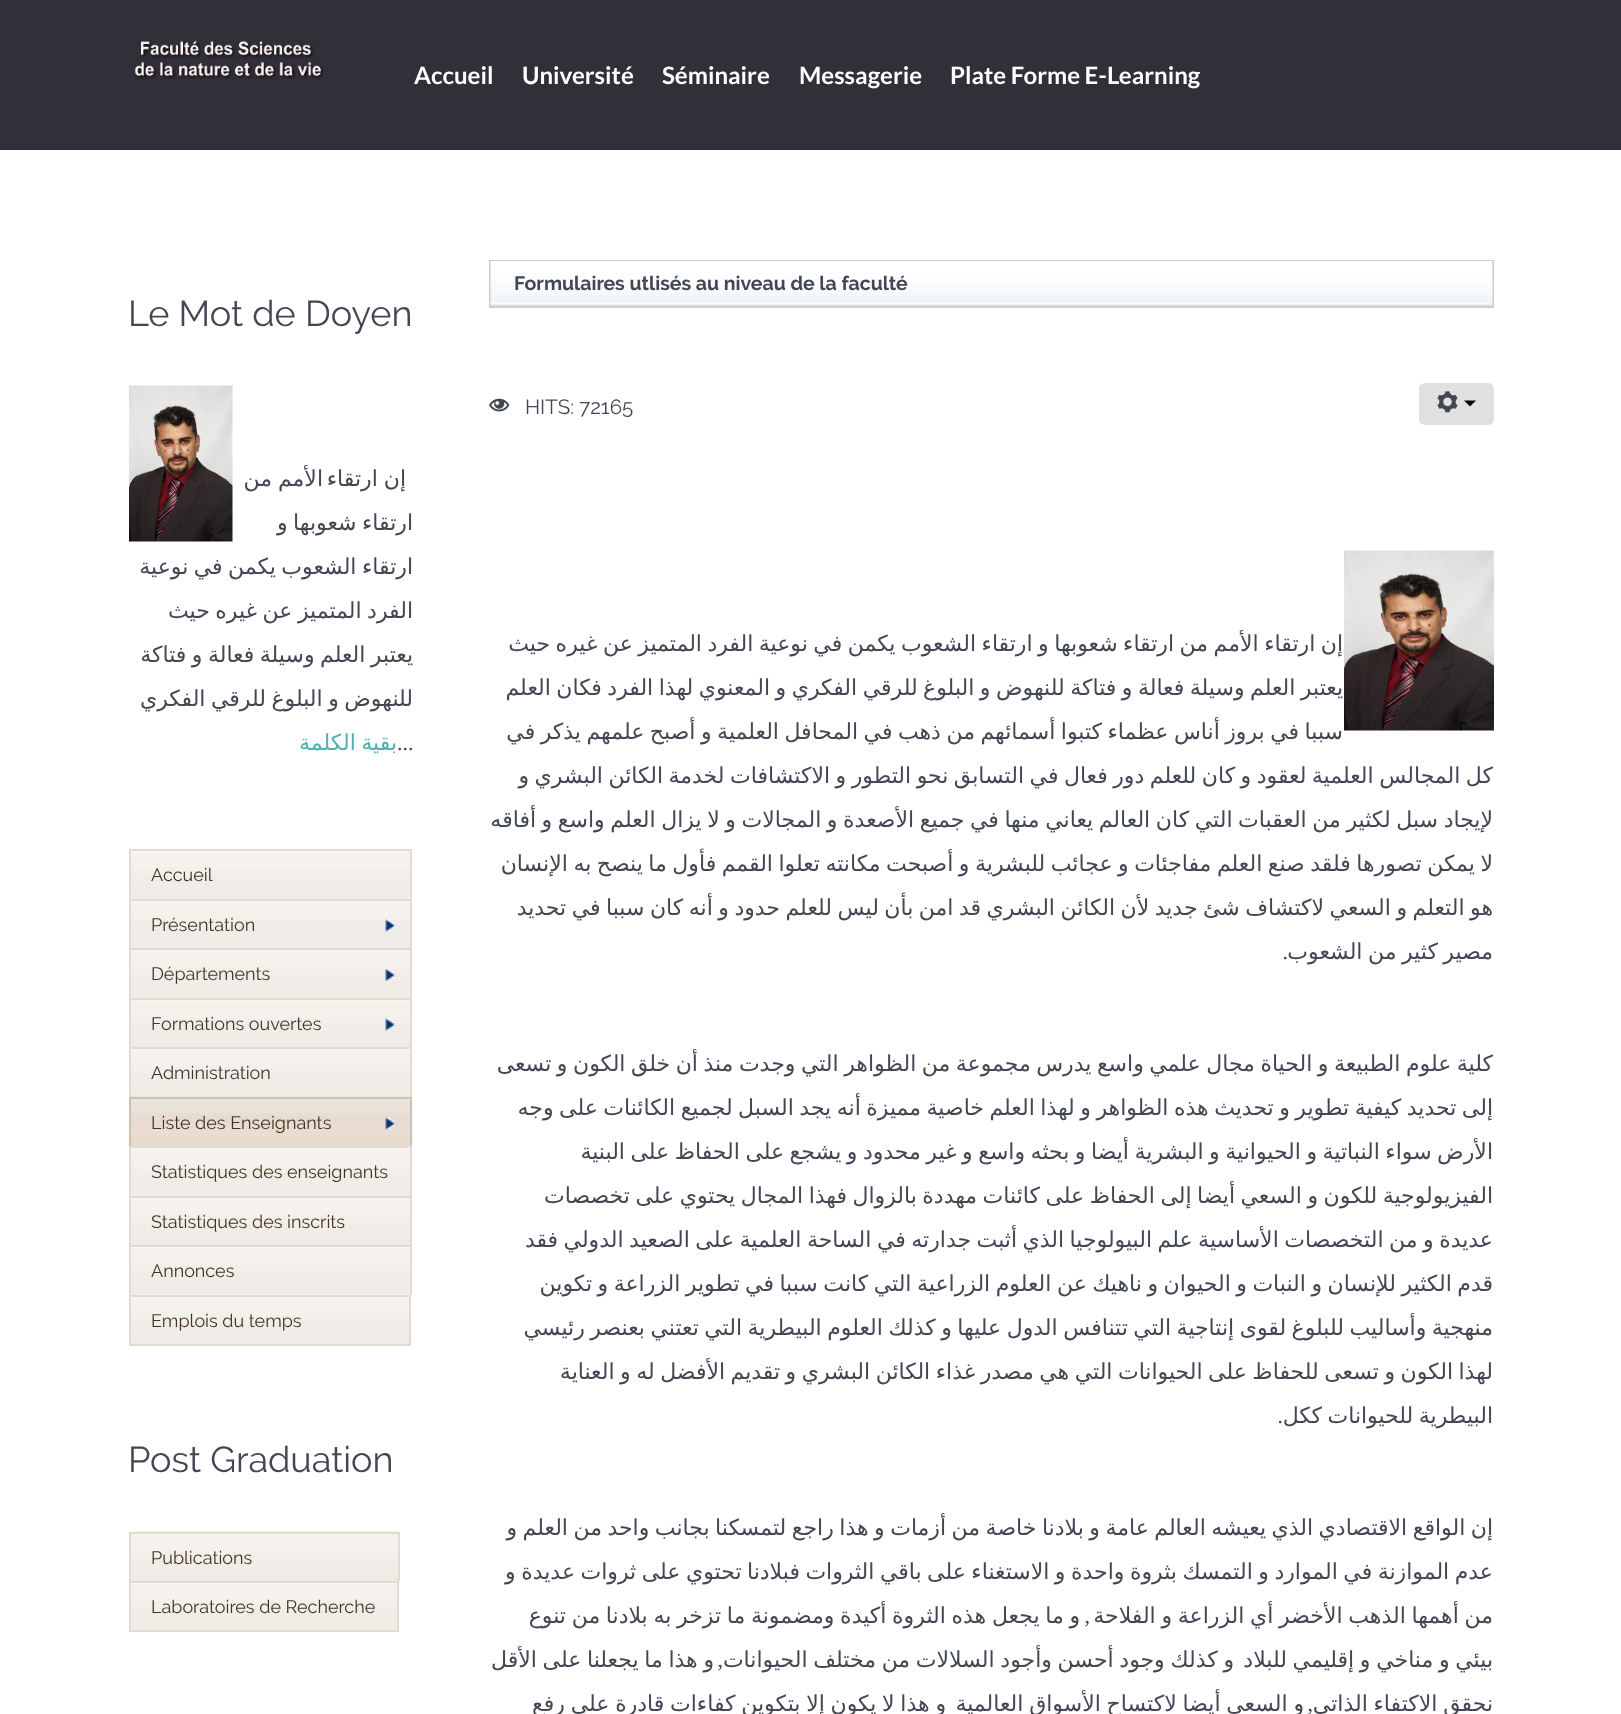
(async () => {
    const canvas = document.querySelector("canvas");
    canvas.width = 1621;
    canvas.height = 1714;
    const context = canvas.getContext("2d");
    context.miterLimit = 4;
    context.fontKerning = "normal";
    function write(s, x, y, font, color) {
        context.font = font;
        context.fillStyle = color;
        context.fillText(s, x, y);
    }
    function block(x, y, w, h, color) {
        context.fillStyle = color;
        context.fillRect(x, y, w, h);
    }
    function card(x, y, w, h, r, color) {
        context.fillStyle = color;
        context.beginPath();
        context.roundRect(x, y, w, h, r);
        context.fill();
    }
    async function photo(src, x, y, w, h) {
        const img = new Image();
        img.src = src;
        await img.decode();
        context.drawImage(img, x, y, w, h);
    }

    block(0, 0, 1621, 1714, "rgb(255, 255, 255)");
    block(0, 0, 1621, 150, "rgb(49, 47, 56)");
    write("Plate Forme E-Learning", 950, 84, "bold 24px Lato", "rgb(255, 255, 255)");
    write("Messagerie", 799, 84, "bold 24px Lato", "rgb(255, 255, 255)");
    write("Séminaire", 662, 84, "bold 24px Lato", "rgb(255, 255, 255)");
    write("Université", 522, 84, "bold 24px Lato", "rgb(255, 255, 255)");
    write("Accueil", 414, 84, "bold 24px Lato", "rgb(255, 255, 255)");
    await photo("media/1.png", 134, 40, 190, 39);
    context.strokeStyle = "rgb(204, 204, 204)";
    context.lineWidth = 2;
    context.strokeRect(490, 261, 1003, 46);
    await photo("media/2.png", 490, 261, 1003, 45);
    write("Formulaires utlisés au niveau de la faculté", 514, 290, "bold 19.5px Raleway", "rgb(66, 71, 83)");
    card(1419, 383, 75, 42, 6, "rgb(224, 224, 224)");
    context.fillStyle = "rgb(0, 0, 0)";
    context.beginPath();
    context.moveTo(1464, 400.5);
    context.lineTo(1476, 400.5);
    context.lineTo(1470, 406.5);
    context.closePath();
    context.fill();
    await photo("media/3.png", 1437, 391, 21, 22);
    write("HITS: 72165", 525, 414, "20.5px Raleway", "rgb(66, 71, 83)");
    await photo("media/4.png", 489, 398, 21, 14);
    await photo("media/5.png", 1344, 550, 150, 181);
    context.wordSpacing = "-1.5px";
    context.direction = "rtl";
    write("إن ارتقاء الأمم من ارتقاء شعوبها و ارتقاء الشعوب يكمن في نوعية الفرد المتميز عن غيره حيث", 1343, 651, "22px DejaVu Sans", "rgb(66, 71, 83)");
    write("يعتبر العلم وسيلة فعالة و فتاكة للنهوض و البلوغ للرقي الفكري و المعنوي لهذا الفرد فكان العلم", 1343, 695, "22px DejaVu Sans", "rgb(66, 71, 83)");
    write("سببا في بروز أناس عظماء كتبوا أسمائهم من ذهب في المحافل العلمية و أصبح علمهم يذكر في", 1343, 739, "22px DejaVu Sans", "rgb(66, 71, 83)");
    write("كل المجالس العلمية لعقود و كان للعلم دور فعال في التسابق نحو التطور و الاكتشافات لخدمة الكائن البشري و", 1493, 783, "22px DejaVu Sans", "rgb(66, 71, 83)");
    context.wordSpacing = "-1.4px";
    write("لإيجاد سبل لكثير من العقبات التي كان العالم يعاني منها في جميع الأصعدة و المجالات و لا يزال العلم واسع و أفاقه", 1493, 827, "22px DejaVu Sans", "rgb(66, 71, 83)");
    context.wordSpacing = "-1.5px";
    write("لا يمكن تصورها فلقد صنع العلم مفاجئات و عجائب للبشرية و أصبحت مكانته تعلوا القمم فأول ما ينصح به الإنسان", 1493, 871, "22px DejaVu Sans", "rgb(66, 71, 83)");
    write("هو التعلم و السعي لاكتشاف شئ جديد لأن الكائن البشري قد امن بأن ليس للعلم حدود و أنه كان سببا في تحديد", 1493, 915, "22px DejaVu Sans", "rgb(66, 71, 83)");
    write("مصير كثير من الشعوب", 1493, 959, "22px DejaVu Sans", "rgb(66, 71, 83)");
    context.wordSpacing = "0px";
    write(".", 1288, 959, "22px Liberation Serif", "rgb(66, 71, 83)");
    context.wordSpacing = "-1.5px";
    write("كلية علوم الطبيعة و الحياة مجال علمي واسع يدرس مجموعة من الظواهر التي وجدت منذ أن خلق الكون و تسعى", 1493, 1071, "22px DejaVu Sans", "rgb(66, 71, 83)");
    write("إلى تحديد كيفية تطوير و تحديث هذه الظواهر و لهذا العلم خاصية مميزة أنه يجد السبل لجميع الكائنات على وجه", 1493, 1115, "22px DejaVu Sans", "rgb(66, 71, 83)");
    write("الأرض سواء النباتية و الحيوانية و البشرية أيضا و بحثه واسع و غير محدود و يشجع على الحفاظ على البنية", 1493, 1159, "22px DejaVu Sans", "rgb(66, 71, 83)");
    write("الفيزيولوجية للكون و السعي أيضا إلى الحفاظ على كائنات مهددة بالزوال فهذا المجال يحتوي على تخصصات", 1493, 1203, "22px DejaVu Sans", "rgb(66, 71, 83)");
    write("عديدة و من التخصصات الأساسية علم البيولوجيا الذي أثبت جدارته في الساحة العلمية على الصعيد الدولي فقد", 1493, 1247, "22px DejaVu Sans", "rgb(66, 71, 83)");
    write("قدم الكثير للإنسان و النبات و الحيوان و ناهيك عن العلوم الزراعية التي كانت سببا في تطوير الزراعة و تكوين", 1493, 1291, "22px DejaVu Sans", "rgb(66, 71, 83)");
    write("منهجية وأساليب للبلوغ لقوى إنتاجية التي تتنافس الدول عليها و كذلك العلوم البيطرية التي تعتني بعنصر رئيسي", 1493, 1335, "22px DejaVu Sans", "rgb(66, 71, 83)");
    write("لهذا الكون و تسعى للحفاظ على الحيوانات التي هي مصدر غذاء الكائن البشري و تقديم الأفضل له و العناية", 1493, 1379, "22px DejaVu Sans", "rgb(66, 71, 83)");
    write("البيطرية للحيوانات ككل", 1493, 1423, "22px DejaVu Sans", "rgb(66, 71, 83)");
    context.wordSpacing = "0px";
    write(".", 1283, 1423, "22px Liberation Serif", "rgb(66, 71, 83)");
    context.wordSpacing = "-1.5px";
    write("إن الواقع الاقتصادي الذي يعيشه العالم عامة و بلادنا خاصة من أزمات و هذا راجع لتمسكنا بجانب واحد من العلم و", 1493, 1535, "22px DejaVu Sans", "rgb(66, 71, 83)");
    write("عدم الموازنة في الموارد و التمسك بثروة واحدة و الاستغناء على باقي الثروات فبلادنا تحتوي على ثروات عديدة و", 1493, 1579, "22px DejaVu Sans", "rgb(66, 71, 83)");
    context.wordSpacing = "-1.3px";
    write("من أهمها الذهب الأخضر أي الزراعة و الفلاحة", 1493, 1623, "22px DejaVu Sans", "rgb(66, 71, 83)");
    write("و ما يجعل هذه الثروة أكيدة ومضمونة ما تزخر به بلادنا من تنوع", 1080, 1623, "22px DejaVu Sans", "rgb(66, 71, 83)");
    context.wordSpacing = "0px";
    write(",", 1090, 1623, "22px Liberation Serif", "rgb(66, 71, 83)");
    context.wordSpacing = "-1.3px";
    write("بيئي و مناخي و إقليمي للبلاد", 1493, 1667, "22px DejaVu Sans", "rgb(66, 71, 83)");
    write("و كذلك وجود أحسن وأجود السلالات من مختلف الحيوانات", 1234, 1667, "22px DejaVu Sans", "rgb(66, 71, 83)");
    write("و هذا ما يجعلنا على الأقل", 714, 1667, "22px DejaVu Sans", "rgb(66, 71, 83)");
    context.wordSpacing = "0px";
    write(",", 723, 1667, "22px Liberation Serif", "rgb(66, 71, 83)");
    context.wordSpacing = "-1.25px";
    write("نحقق الاكتفاء الذاتي", 1493, 1711, "22px DejaVu Sans", "rgb(66, 71, 83)");
    write("و السعي أيضا لاكتساح الأسواق العالمية", 1304, 1711, "22px DejaVu Sans", "rgb(66, 71, 83)");
    context.wordSpacing = "0px";
    write(",", 1313, 1711, "22px Liberation Serif", "rgb(66, 71, 83)");
    context.wordSpacing = "-1.25px";
    write("و هذا لا يكون إلا بتكوين كفاءات قادرة على رفع", 946, 1711, "22px DejaVu Sans", "rgb(66, 71, 83)");
    context.wordSpacing = "0px";
    context.direction = "ltr";
    write("Le Mot de Doyen", 128, 326, "36px Raleway", "rgb(66, 71, 83)");
    await photo("media/6.png", 129, 385, 104, 157);
    context.wordSpacing = "-1px";
    context.direction = "rtl";
    write("إن ارتقاء", 406, 486, "22px DejaVu Sans", "rgb(66, 71, 83)");
    write("الأمم من", 323, 486, "22px DejaVu Sans", "rgb(66, 71, 83)");
    context.wordSpacing = "-1.5px";
    write("ارتقاء شعوبها و", 413, 530, "22px DejaVu Sans", "rgb(66, 71, 83)");
    write("ارتقاء الشعوب يكمن في نوعية", 413, 574, "22px DejaVu Sans", "rgb(66, 71, 83)");
    write("الفرد المتميز عن غيره حيث", 413, 618, "22px DejaVu Sans", "rgb(66, 71, 83)");
    write("يعتبر العلم وسيلة فعالة و فتاكة", 413, 662, "22px DejaVu Sans", "rgb(66, 71, 83)");
    write("للنهوض و البلوغ للرقي الفكري", 413, 706, "22px DejaVu Sans", "rgb(66, 71, 83)");
    context.wordSpacing = "0px";
    context.direction = "ltr";
    write("...", 397, 750, "22px Liberation Serif", "rgb(66, 71, 83)");
    context.wordSpacing = "-1.5px";
    context.direction = "rtl";
    write("بقية الكلمة", 397, 750, "22px DejaVu Sans", "rgb(77, 178, 179)");
    block(131, 898, 279, 1, "rgb(243, 239, 236)");
    await photo("media/7.png", 131, 851, 279, 47);
    block(129, 849, 282, 2, "rgb(227, 218, 209)");
    block(410, 849, 2, 50, "rgb(227, 218, 209)");
    block(129, 849, 2, 50, "rgb(227, 218, 209)");
    context.wordSpacing = "0px";
    context.direction = "ltr";
    write("Accueil", 151, 881, "18px Raleway", "rgb(68, 51, 34)");
    await photo("media/8.png", 129, 898, 282, 50);
    block(129, 899, 282, 2, "rgb(227, 218, 209)");
    block(410, 899, 2, 49, "rgb(227, 218, 209)");
    block(129, 899, 2, 49, "rgb(227, 218, 209)");
    await photo("media/9.png", 385, 919, 10, 13);
    write("Présentation", 151, 931, "18px Raleway", "rgb(68, 51, 34)");
    block(131, 997, 279, 1, "rgb(243, 239, 236)");
    await photo("media/7.png", 131, 950, 279, 47);
    block(129, 948, 282, 2, "rgb(227, 218, 209)");
    block(410, 948, 2, 50, "rgb(227, 218, 209)");
    block(129, 948, 2, 50, "rgb(227, 218, 209)");
    await photo("media/10.png", 385, 969, 10, 12);
    write("Départements", 151, 980, "18px Raleway", "rgb(68, 51, 34)");
    await photo("media/8.png", 129, 997, 282, 50);
    block(129, 998, 282, 2, "rgb(227, 218, 209)");
    block(410, 998, 2, 49, "rgb(227, 218, 209)");
    block(129, 998, 2, 49, "rgb(227, 218, 209)");
    await photo("media/9.png", 385, 1018, 10, 13);
    write("Formations ouvertes", 151, 1030, "18px Raleway", "rgb(68, 51, 34)");
    block(131, 1096, 279, 1, "rgb(243, 239, 236)");
    await photo("media/7.png", 131, 1049, 279, 47);
    block(129, 1047, 282, 2, "rgb(227, 218, 209)");
    block(410, 1047, 2, 50, "rgb(227, 218, 209)");
    block(129, 1047, 2, 50, "rgb(227, 218, 209)");
    write("Administration", 151, 1079, "18px Raleway", "rgb(68, 51, 34)");
    await photo("media/11.png", 129, 1096, 282, 50);
    block(129, 1097, 282, 2, "rgb(203, 192, 183)");
    block(410, 1097, 2, 49, "rgb(203, 192, 183)");
    block(129, 1097, 2, 49, "rgb(203, 192, 183)");
    await photo("media/12.png", 385, 1117, 10, 13);
    write("Liste des Enseignants", 151, 1129, "18px Raleway", "rgb(68, 51, 34)");
    block(131, 1195, 279, 1, "rgb(243, 239, 236)");
    await photo("media/7.png", 131, 1148, 279, 47);
    block(129, 1146, 282, 2, "rgb(227, 218, 209)");
    block(410, 1146, 2, 50, "rgb(227, 218, 209)");
    block(129, 1146, 2, 50, "rgb(227, 218, 209)");
    write("Statistiques des enseignants", 151, 1178, "18px Raleway", "rgb(68, 51, 34)");
    await photo("media/13.png", 129, 1195, 282, 50);
    block(129, 1196, 282, 2, "rgb(227, 218, 209)");
    block(410, 1196, 2, 49, "rgb(227, 218, 209)");
    block(129, 1196, 2, 49, "rgb(227, 218, 209)");
    write("Statistiques des inscrits", 151, 1228, "18px Raleway", "rgb(68, 51, 34)");
    block(131, 1294, 279, 1, "rgb(243, 239, 236)");
    await photo("media/14.png", 131, 1247, 279, 47);
    block(129, 1245, 282, 2, "rgb(227, 218, 209)");
    block(410, 1245, 2, 50, "rgb(227, 218, 209)");
    block(129, 1245, 2, 50, "rgb(227, 218, 209)");
    write("Annonces", 151, 1277, "18px Raleway", "rgb(68, 51, 34)");
    await photo("media/13.png", 129, 1294, 282, 50);
    context.strokeStyle = "rgb(227, 218, 209)";
    context.strokeRect(130, 1296, 280, 49);
    write("Emplois du temps", 151, 1327, "18px Raleway", "rgb(68, 51, 34)");
    write("Post Graduation", 128, 1472, "36px Raleway", "rgb(66, 71, 83)");
    await photo("media/15.png", 129, 1531, 270, 50);
    block(129, 1532, 270, 2, "rgb(227, 218, 209)");
    block(398, 1532, 2, 49, "rgb(227, 218, 209)");
    block(129, 1532, 2, 49, "rgb(227, 218, 209)");
    write("Publications", 151, 1564, "18px Raleway", "rgb(68, 51, 34)");
    await photo("media/16.png", 131, 1583, 266, 47);
    context.strokeRect(130, 1582, 268, 49);
    write("Laboratoires de Recherche", 151, 1613, "18px Raleway", "rgb(68, 51, 34)");
})();
